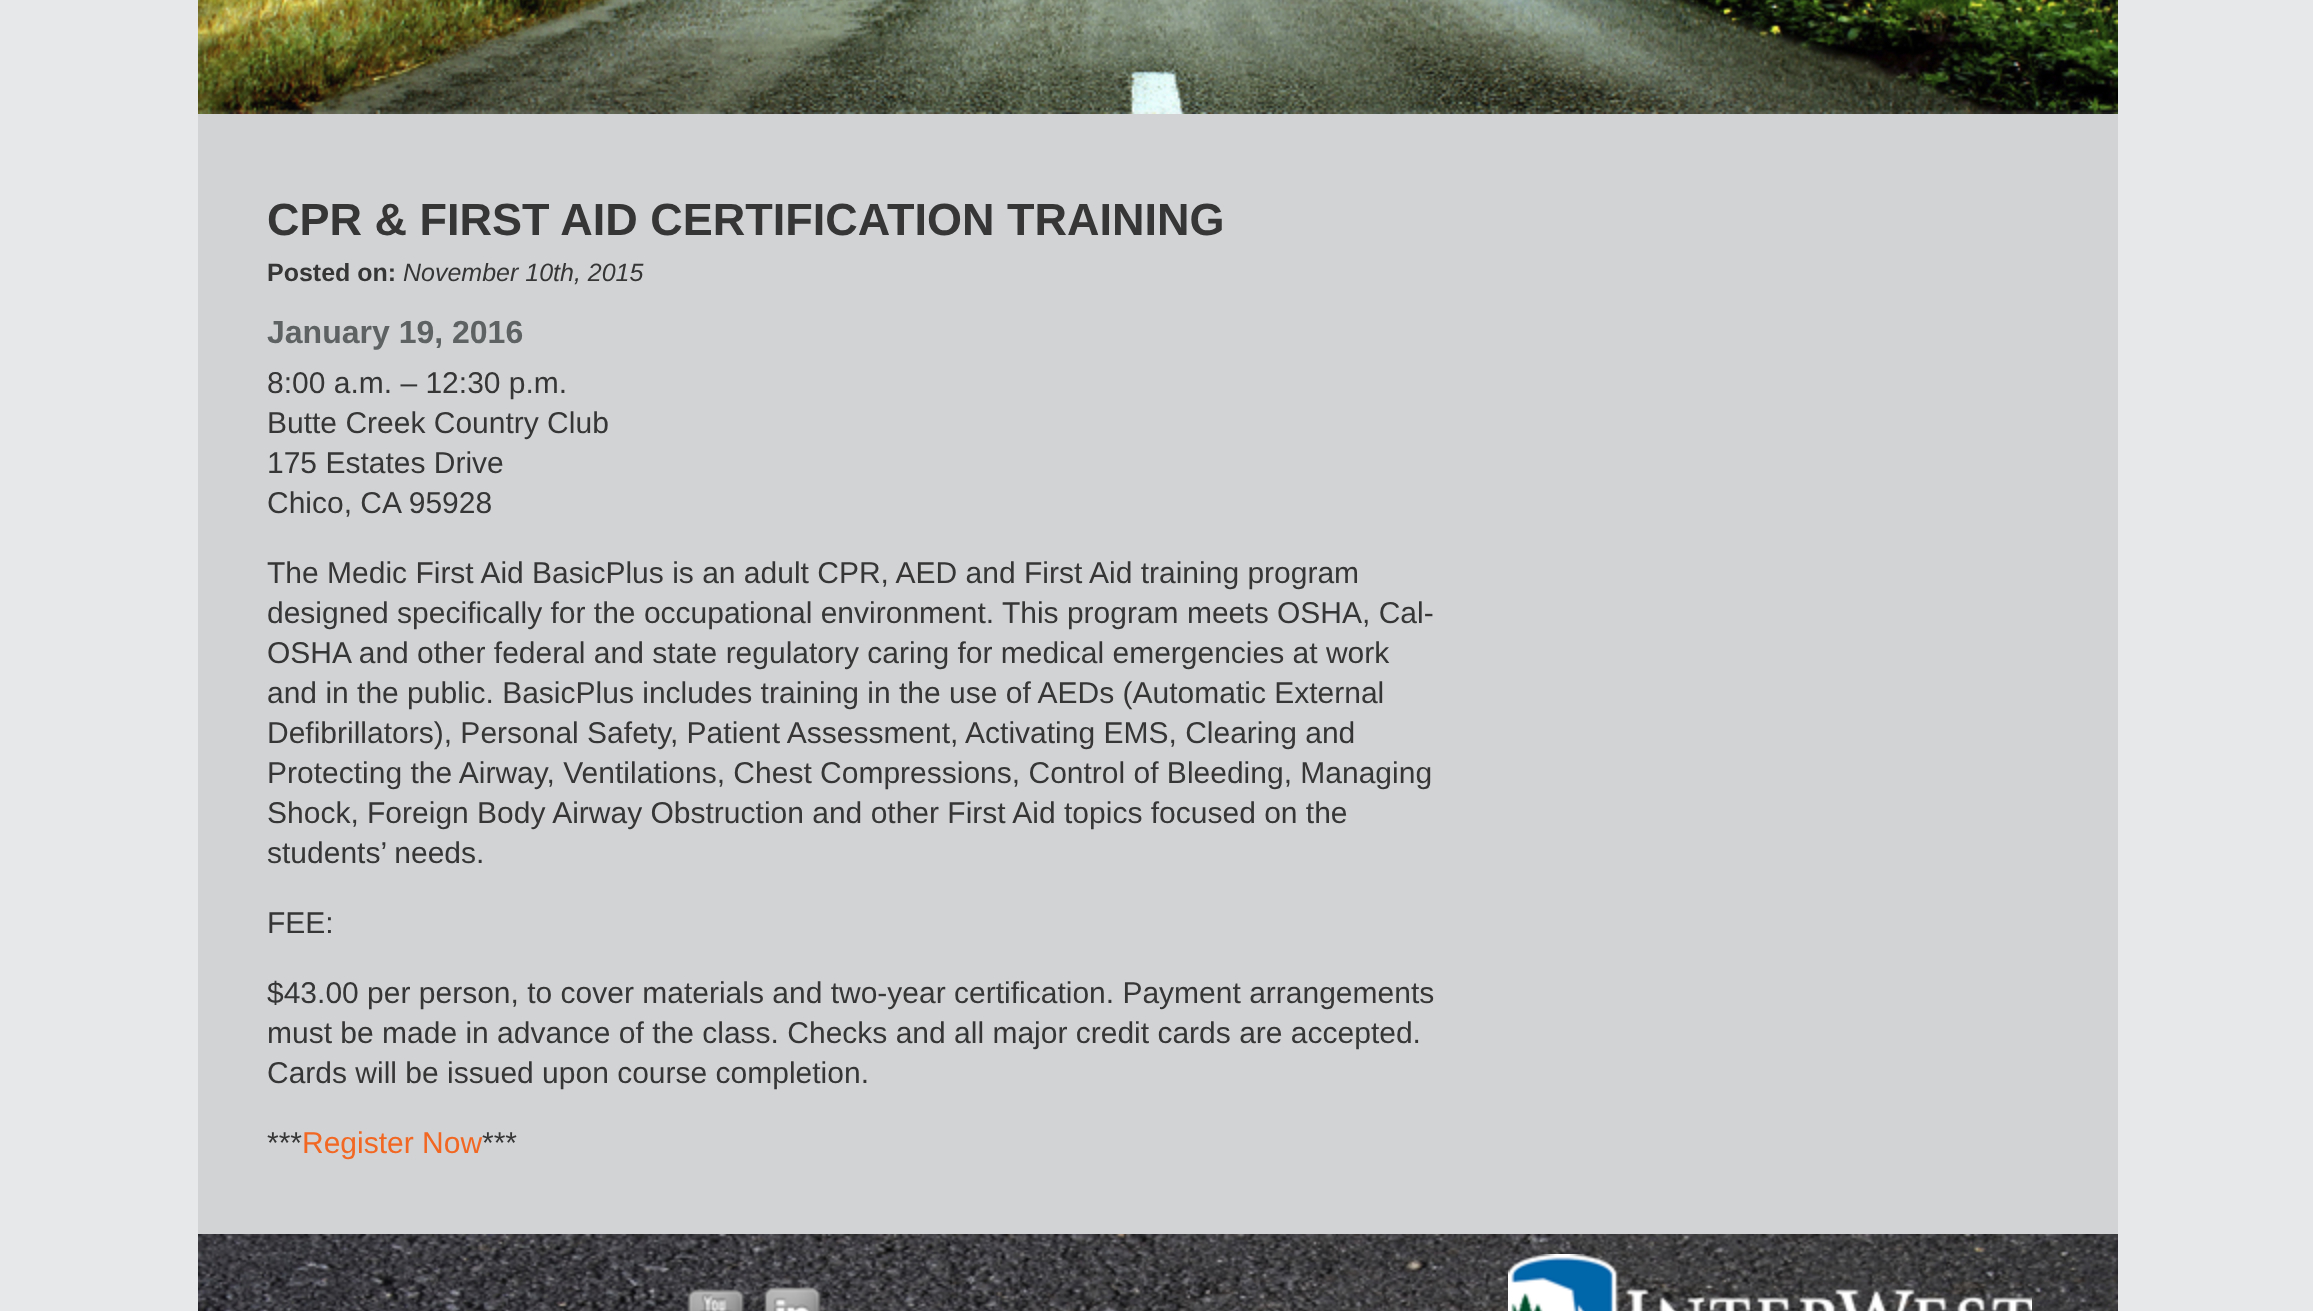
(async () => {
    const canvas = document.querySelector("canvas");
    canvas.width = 2313;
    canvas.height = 1311;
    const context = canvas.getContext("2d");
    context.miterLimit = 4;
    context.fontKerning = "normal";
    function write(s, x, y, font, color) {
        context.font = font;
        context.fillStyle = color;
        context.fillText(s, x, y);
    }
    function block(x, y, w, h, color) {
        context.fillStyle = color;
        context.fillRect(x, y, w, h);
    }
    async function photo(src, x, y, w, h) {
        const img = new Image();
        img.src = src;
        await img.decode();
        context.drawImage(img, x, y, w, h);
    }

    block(0, 0, 2313, 1311, "rgb(231, 232, 233)");
    await photo("media/1.png", 198, 0, 1920, 114);
    block(198, 114, 1920, 1120, "rgb(209, 211, 213)");
    write("CPR & FIRST AID CERTIFICATION TRAINING", 267, 235, "bold 45px Liberation Sans", "rgb(54, 54, 54)");
    write("Posted on:", 267, 281, "bold 25px Liberation Sans", "rgb(54, 54, 54)");
    write("November 10th, 2015", 403, 281, "italic 25px Liberation Sans", "rgb(54, 54, 54)");
    write("January 19, 2016", 267, 343, "bold 32px Liberation Sans", "rgb(94, 98, 99)");
    write("8:00 a.m. – 12:30 p.m.", 267, 393, "30px Liberation Sans", "rgb(54, 54, 54)");
    write("Butte Creek Country Club", 267, 433, "30px Liberation Sans", "rgb(54, 54, 54)");
    write("175 Estates Drive", 267, 473, "30px Liberation Sans", "rgb(54, 54, 54)");
    write("Chico, CA 95928", 267, 513, "30px Liberation Sans", "rgb(54, 54, 54)");
    write("The Medic First Aid BasicPlus is an adult CPR, AED and First Aid training program", 267, 583, "30px Liberation Sans", "rgb(54, 54, 54)");
    write("designed specifically for the occupational environment. This program meets OSHA, Cal-", 267, 623, "30px Liberation Sans", "rgb(54, 54, 54)");
    write("OSHA and other federal and state regulatory caring for medical emergencies at work", 267, 663, "30px Liberation Sans", "rgb(54, 54, 54)");
    write("and in the public. BasicPlus includes training in the use of AEDs (Automatic External", 267, 703, "30px Liberation Sans", "rgb(54, 54, 54)");
    write("Defibrillators), Personal Safety, Patient Assessment, Activating EMS, Clearing and", 267, 743, "30px Liberation Sans", "rgb(54, 54, 54)");
    write("Protecting the Airway, Ventilations, Chest Compressions, Control of Bleeding, Managing", 267, 783, "30px Liberation Sans", "rgb(54, 54, 54)");
    write("Shock, Foreign Body Airway Obstruction and other First Aid topics focused on the", 267, 823, "30px Liberation Sans", "rgb(54, 54, 54)");
    write("students’ needs.", 267, 863, "30px Liberation Sans", "rgb(54, 54, 54)");
    write("FEE:", 267, 933, "30px Liberation Sans", "rgb(54, 54, 54)");
    write("$43.00 per person, to cover materials and two-year certification. Payment arrangements", 267, 1003, "30px Liberation Sans", "rgb(54, 54, 54)");
    write("must be made in advance of the class. Checks and all major credit cards are accepted.", 267, 1043, "30px Liberation Sans", "rgb(54, 54, 54)");
    write("Cards will be issued upon course completion.", 267, 1083, "30px Liberation Sans", "rgb(54, 54, 54)");
    write("***", 267, 1153, "30px Liberation Sans", "rgb(54, 54, 54)");
    write("Register Now", 302, 1153, "30px Liberation Sans", "rgb(242, 103, 34)");
    write("***", 482, 1153, "30px Liberation Sans", "rgb(54, 54, 54)");
    await photo("media/2.png", 198, 1234, 1920, 77);
    await photo("media/3.png", 687, 1288, 61, 23);
    await photo("media/4.png", 763, 1287, 63, 24);
    await photo("media/5.png", 1508, 1254, 524, 57);
})();
